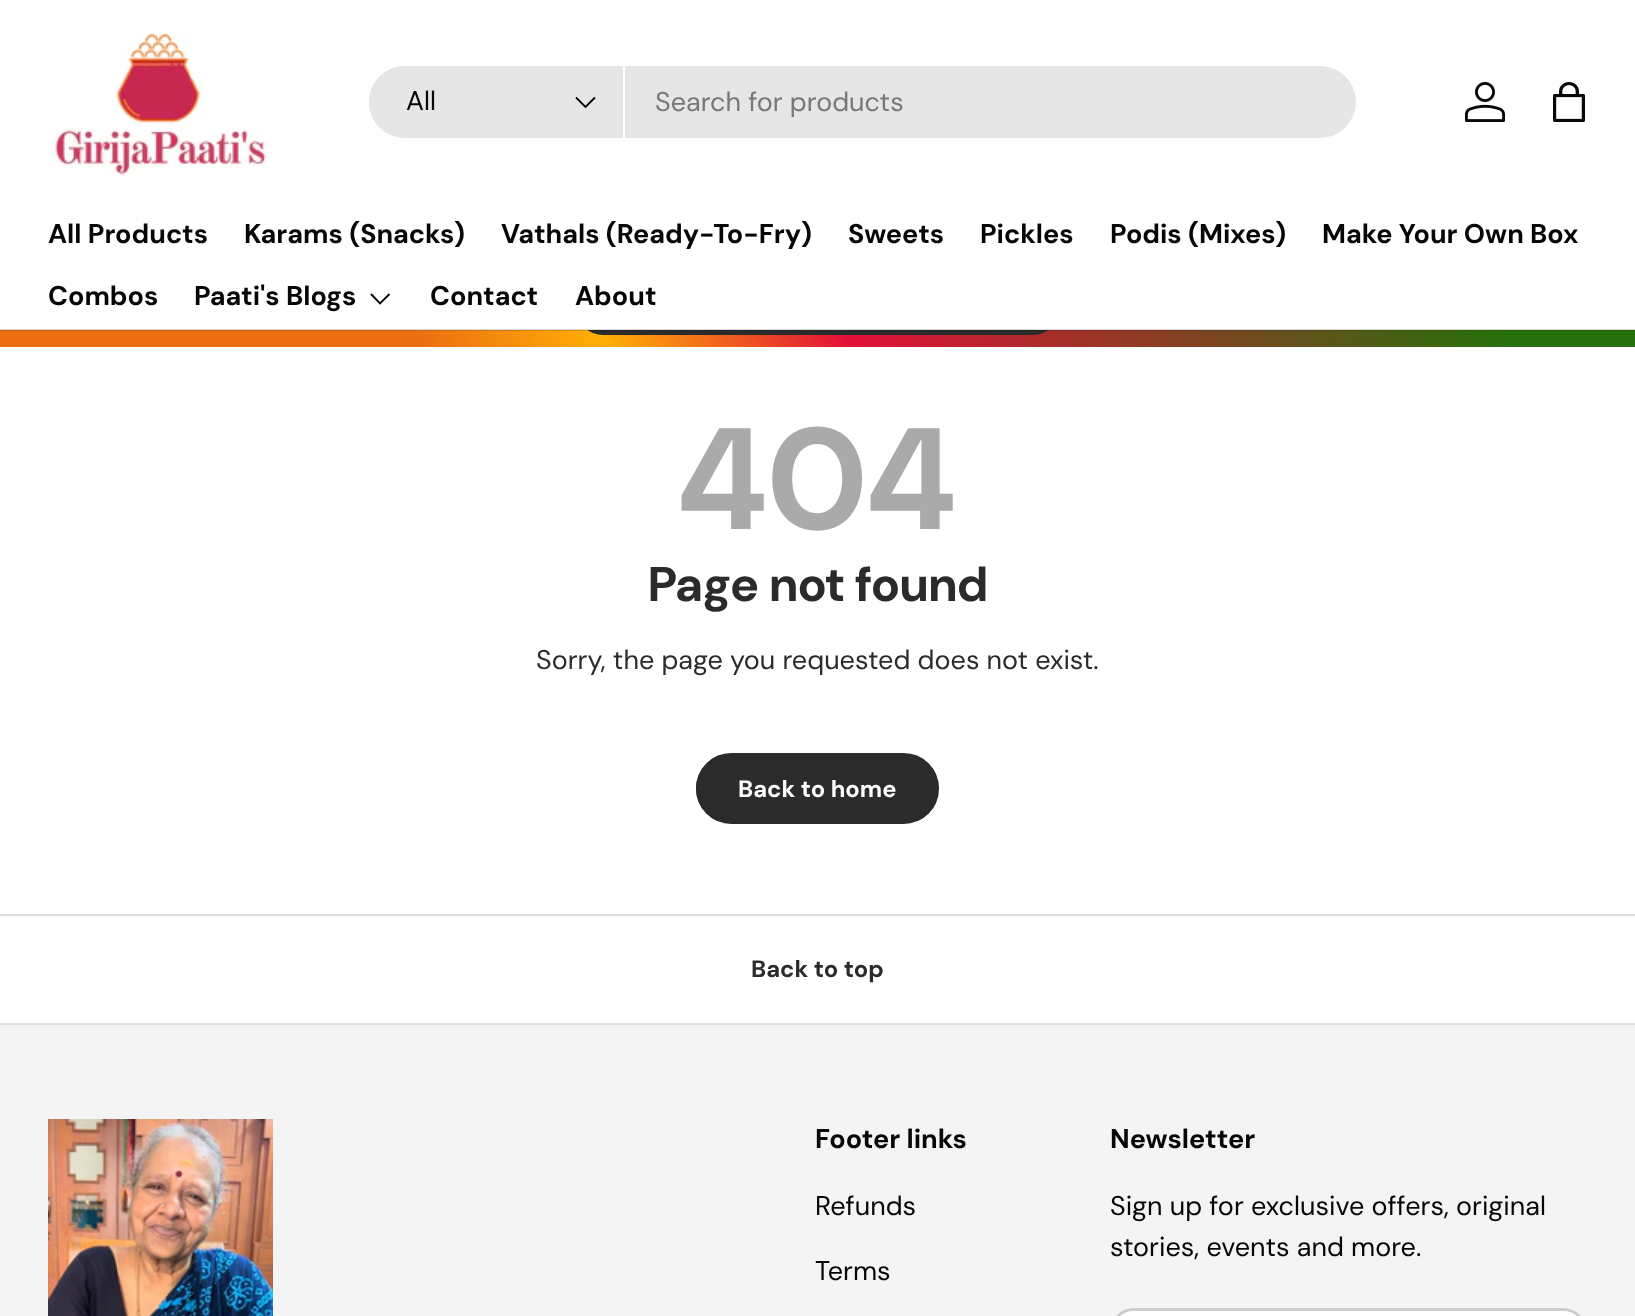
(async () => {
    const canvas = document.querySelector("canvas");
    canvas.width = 1635;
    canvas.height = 1316;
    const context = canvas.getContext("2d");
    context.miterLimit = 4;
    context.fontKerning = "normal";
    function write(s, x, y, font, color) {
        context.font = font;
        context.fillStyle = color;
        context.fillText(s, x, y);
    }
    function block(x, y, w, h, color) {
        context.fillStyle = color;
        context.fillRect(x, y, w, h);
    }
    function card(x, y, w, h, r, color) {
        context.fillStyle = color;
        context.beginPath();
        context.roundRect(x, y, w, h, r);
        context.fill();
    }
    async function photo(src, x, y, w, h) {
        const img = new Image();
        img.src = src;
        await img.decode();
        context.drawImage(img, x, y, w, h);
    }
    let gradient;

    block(0, 0, 1635, 1316, "rgb(255, 255, 255)");
    gradient = context.createLinearGradient(247, 687, 1388, -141);
    gradient.addColorStop(0.24, "rgb(236, 109, 18)");
    gradient.addColorStop(0.35, "rgb(255, 175, 5)");
    gradient.addColorStop(0.49, "rgb(226, 15, 56)");
    gradient.addColorStop(0.87, "rgb(39, 113, 12)");
    context.fillStyle = gradient;
    context.fillRect(0, 330, 1635, 17);
    context.save();
    context.beginPath();
    context.roundRect(578, 285, 480, 50, 25);
    context.clip();
    gradient = context.createLinearGradient(-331, 142, 1018, 478);
    gradient.addColorStop(0.6, "rgb(82, 83, 82)");
    gradient.addColorStop(0.6, "rgb(42, 43, 42)");
    gradient.addColorStop(1, "rgb(42, 43, 42)");
    context.fillStyle = gradient;
    context.fillRect(588, 330, 460, 2);
    context.restore();
    context.beginPath();
    context.roundRect(579.5, 286.5, 477, 47, 23.5);
    context.strokeStyle = "rgb(42, 43, 42)";
    context.lineWidth = 3;
    context.stroke();
    block(578, 285, 480, 45, "rgb(255, 255, 255)");
    block(0, 329, 1635, 2, "rgba(7, 7, 7, 0.15)");
    await photo("media/1.png", 48, 33, 222, 144);
    card(369, 66, 987, 72, 36, "rgb(230, 230, 230)");
    context.beginPath();
    context.roundRect(369, 66, 255, 72, [36, 0, 0, 36]);
    context.fill();
    block(623, 66, 2, 72, "rgb(255, 255, 255)");
    write("All", 406, 110, "27px DM Sans", "rgb(7, 7, 7)");
    context.beginPath();
    context.moveTo(595, 97.5);
    context.lineTo(585.5, 107);
    context.lineTo(576, 97.5);
    context.strokeStyle = "rgb(7, 7, 7)";
    context.lineWidth = 1.9;
    context.stroke();
    write("Search for products", 655, 111, "27px DM Sans", "rgb(119, 119, 119)");
    await photo("media/2.png", 1465, 82, 40, 40);
    await photo("media/3.png", 1553, 82, 32, 40);
    write("All Products", 48, 243, "bold 27px 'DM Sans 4'", "rgb(7, 7, 7)");
    write("Karams (Snacks)", 244, 243, "bold 27px 'DM Sans 4'", "rgb(7, 7, 7)");
    write("Vathals (Ready-To-Fry)", 501, 243, "bold 27px 'DM Sans 4'", "rgb(7, 7, 7)");
    write("Sweets", 848, 243, "bold 27px 'DM Sans 4'", "rgb(7, 7, 7)");
    write("Pickles", 980, 243, "bold 27px 'DM Sans 4'", "rgb(7, 7, 7)");
    write("Podis (Mixes)", 1110, 243, "bold 27px 'DM Sans 4'", "rgb(7, 7, 7)");
    write("Make Your Own Box", 1322, 243, "bold 27px 'DM Sans 4'", "rgb(7, 7, 7)");
    write("Combos", 48, 305, "bold 27px 'DM Sans 4'", "rgb(7, 7, 7)");
    write("Paati's Blogs", 194, 305, "bold 27px 'DM Sans 4'", "rgb(7, 7, 7)");
    context.beginPath();
    context.moveTo(389.5, 294);
    context.lineTo(380, 303.5);
    context.lineTo(371, 294);
    context.stroke();
    write("Contact", 430, 305, "bold 27px 'DM Sans 4'", "rgb(7, 7, 7)");
    write("About", 575, 305, "bold 27px 'DM Sans 4'", "rgb(7, 7, 7)");
    write("404", 678, 529, "bold 144px DM Sans", "rgb(170, 170, 170)");
    write("Page not found", 648, 601, "bold 48.75px 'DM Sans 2'", "rgb(42, 43, 42)");
    write("Sorry, the page you requested does not exist.", 536, 669, "27px DM Sans", "rgb(42, 43, 42)");
    context.save();
    context.beginPath();
    context.roundRect(696, 753, 243, 71, 35.5);
    context.clip();
    gradient = context.createLinearGradient(238, 703, 923, 874);
    gradient.addColorStop(0.6, "rgb(82, 83, 82)");
    gradient.addColorStop(0.6, "rgb(42, 43, 42)");
    gradient.addColorStop(1, "rgb(42, 43, 42)");
    context.fillStyle = gradient;
    context.fillRect(696, 756, 240, 65);
    context.restore();
    context.beginPath();
    context.roundRect(697.5, 754.5, 240, 68, 34);
    context.strokeStyle = "rgb(42, 43, 42)";
    context.lineWidth = 3;
    context.stroke();
    write("Back to home", 738, 797, "bold 23.75px 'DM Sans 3'", "rgb(255, 255, 255)");
    block(0, 914, 1635, 2, "rgb(223, 223, 223)");
    block(0, 1023, 1635, 2, "rgb(223, 223, 223)");
    write("Back to top", 751, 977, "bold 23.75px 'DM Sans 3'", "rgb(42, 43, 42)");
    block(0, 1025, 1635, 291, "rgb(244, 244, 244)");
    await photo("media/4.png", 48, 1119, 225, 197);
    write("Footer links", 815, 1148, "bold 27px 'DM Sans 4'", "rgb(7, 7, 7)");
    write("Refunds", 815, 1215, "27px DM Sans", "rgb(7, 7, 7)");
    write("Terms", 815, 1280, "27px DM Sans", "rgb(7, 7, 7)");
    write("Newsletter", 1110, 1148, "bold 27px 'DM Sans 4'", "rgb(7, 7, 7)");
    write("Sign up for exclusive offers, original", 1110, 1215, "27px DM Sans", "rgb(7, 7, 7)");
    write("stories, events and more.", 1110, 1256, "27px DM Sans", "rgb(7, 7, 7)");
    card(1110, 1308, 477, 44, 36, "rgb(255, 255, 255)");
    context.beginPath();
    context.roundRect(1111.5, 1309.5, 474, 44, 34.5);
    context.strokeStyle = "rgba(7, 7, 7, 0.2)";
    context.stroke();
})();
